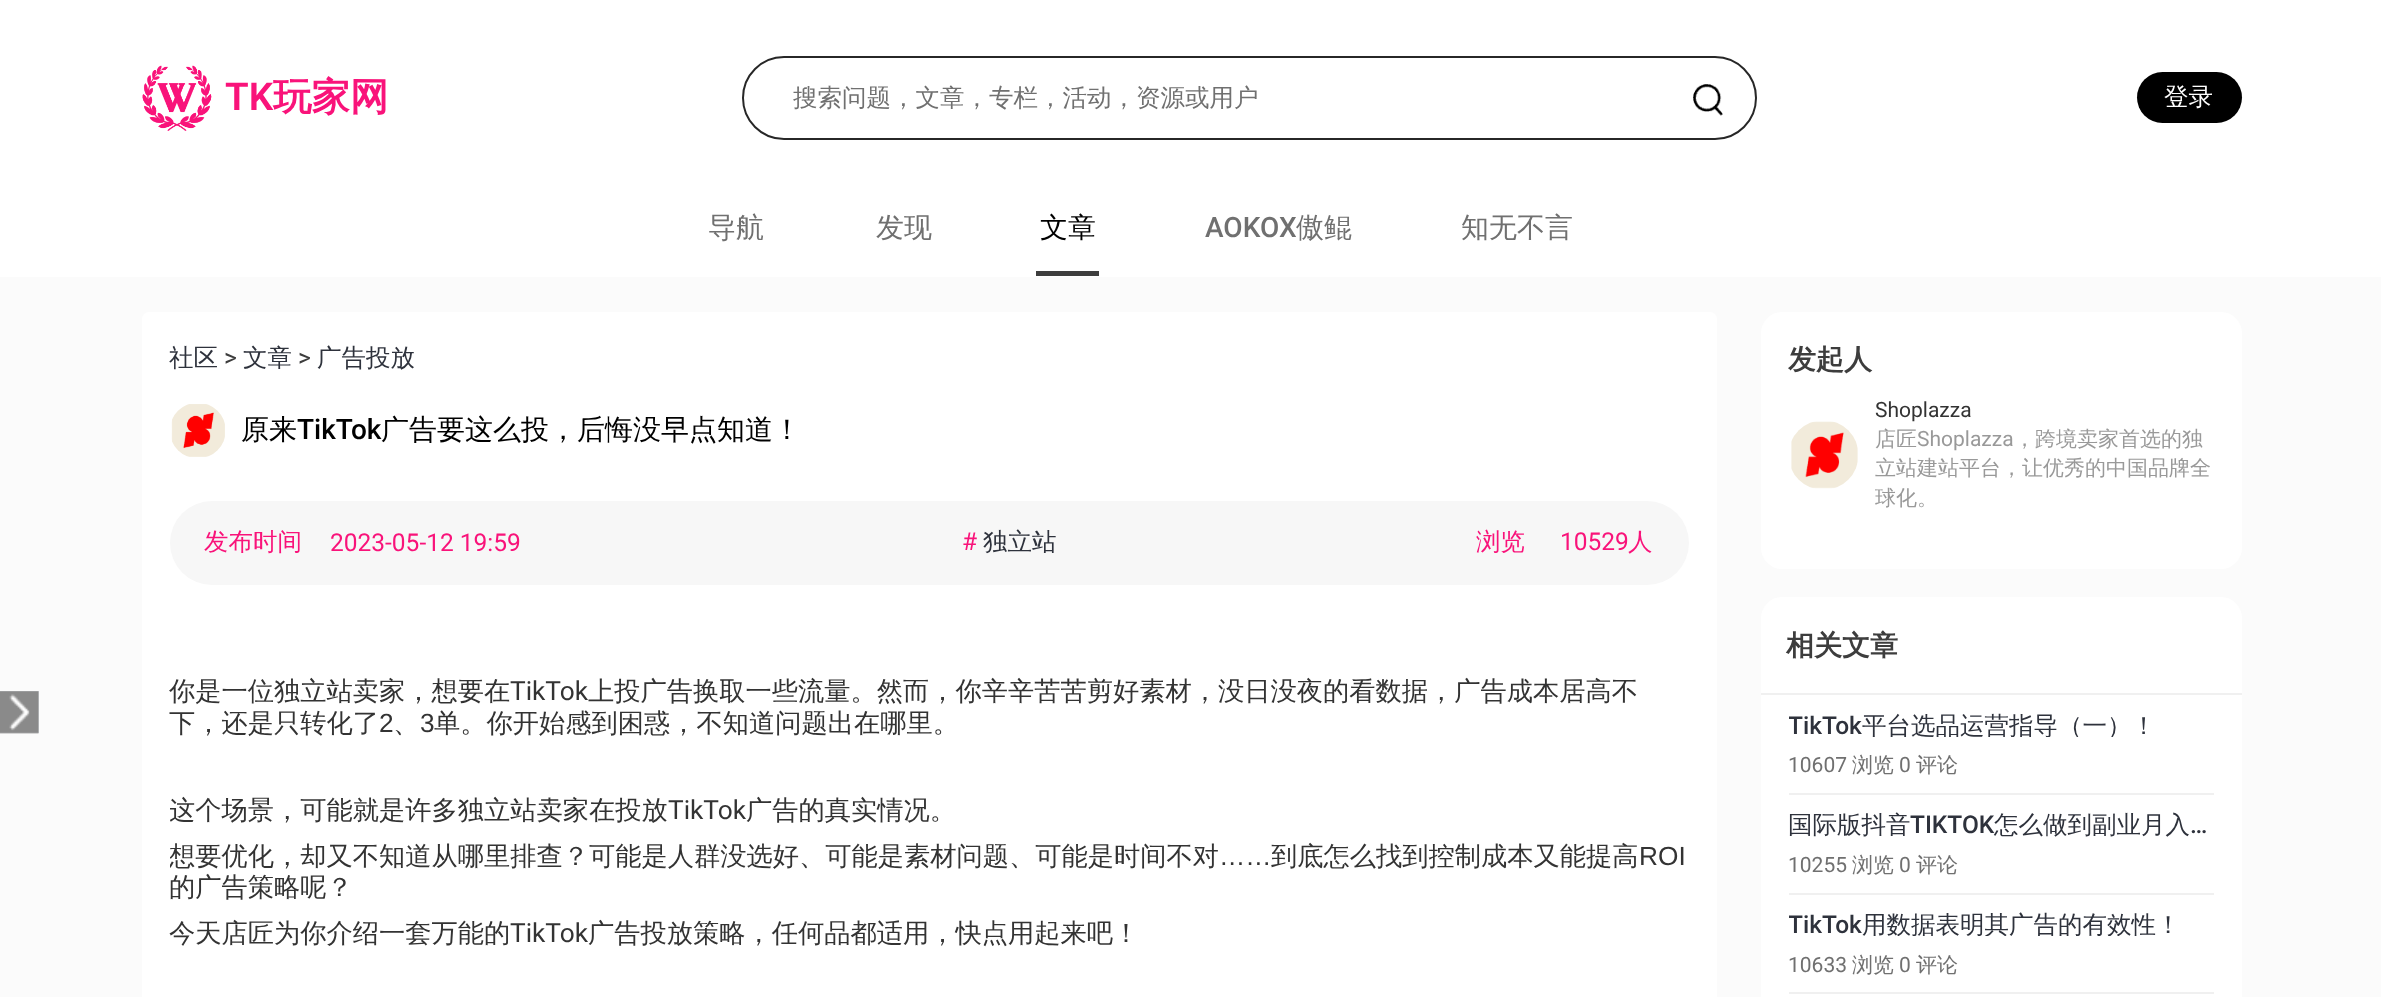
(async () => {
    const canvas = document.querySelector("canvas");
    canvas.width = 2381;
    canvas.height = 997;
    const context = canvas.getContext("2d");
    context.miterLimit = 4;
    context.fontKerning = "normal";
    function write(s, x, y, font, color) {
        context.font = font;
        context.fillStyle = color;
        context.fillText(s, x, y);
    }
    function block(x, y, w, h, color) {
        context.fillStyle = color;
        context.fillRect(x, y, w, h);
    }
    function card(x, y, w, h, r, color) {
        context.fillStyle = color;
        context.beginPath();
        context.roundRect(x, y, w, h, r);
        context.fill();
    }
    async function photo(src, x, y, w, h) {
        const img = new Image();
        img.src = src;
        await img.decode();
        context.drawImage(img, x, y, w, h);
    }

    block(0, 0, 2381, 997, "rgb(251, 251, 251)");
    block(0, 0, 2381, 277, "rgb(255, 255, 255)");
    await photo("media/1.png", 142, 65, 70, 66);
    write("TK", 225, 110, "600 38.5px Roboto", "rgb(249, 19, 122)");
    write("玩家网", 273, 110, "bold 38.5px WenQuanYi Zen Hei", "rgb(249, 19, 122)");
    context.beginPath();
    context.roundRect(743, 57, 1013, 82, 41);
    context.strokeStyle = "rgb(39, 39, 39)";
    context.lineWidth = 2;
    context.stroke();
    write("搜索问题，文章，专栏，活动，资源或用户", 793, 106, "500 24.5px WenQuanYi Zen Hei", "rgb(112, 112, 112)");
    await photo("media/2.png", 1693, 84, 30, 32);
    card(2137, 72, 105, 51, 25.5, "rgb(0, 0, 0)");
    write("登录", 2164, 105, "500 24.5px WenQuanYi Zen Hei", "rgb(255, 255, 255)");
    write("导航", 708, 237, "500 28px WenQuanYi Zen Hei", "rgb(112, 112, 112)");
    write("发现", 876, 237, "500 28px WenQuanYi Zen Hei", "rgb(112, 112, 112)");
    block(1036, 271, 63, 5, "rgb(61, 61, 61)");
    write("文章", 1040, 237, "500 28px WenQuanYi Zen Hei", "rgb(0, 0, 0)");
    write("AOKOX", 1205, 237, "500 28px Roboto", "rgb(112, 112, 112)");
    write("傲鲲", 1296, 237, "500 28px WenQuanYi Zen Hei", "rgb(112, 112, 112)");
    write("知无不言", 1461, 237, "500 28px WenQuanYi Zen Hei", "rgb(112, 112, 112)");
    block(0, 691, 39, 42, "rgb(207, 210, 215)");
    await photo("media/3.png", 0, 691, 39, 43);
    card(142, 312, 1575, 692, 7, "rgb(255, 255, 255)");
    write("社区", 169, 366, "500 24.5px WenQuanYi Zen Hei", "rgb(46, 50, 60)");
    write(">", 224, 366, "24.5px Roboto", "rgb(61, 61, 61)");
    write("文章", 243, 366, "500 24.5px WenQuanYi Zen Hei", "rgb(46, 50, 60)");
    write(">", 298, 366, "24.5px Roboto", "rgb(61, 61, 61)");
    write("广告投放", 317, 366, "500 24.5px WenQuanYi Zen Hei", "rgb(46, 50, 60)");
    await photo("media/4.png", 171, 404, 54, 53);
    write("原来", 241, 439, "500 28px WenQuanYi Zen Hei", "rgb(0, 0, 0)");
    write("TikTok", 297, 439, "500 28px Roboto", "rgb(0, 0, 0)");
    write("广告要这么投，后悔没早点知道！", 381, 439, "500 28px WenQuanYi Zen Hei", "rgb(0, 0, 0)");
    card(170, 501, 1519, 84, 42, "rgb(247, 247, 247)");
    write("发布时间", 204, 550, "500 24.5px WenQuanYi Zen Hei", "rgb(249, 19, 122)");
    write("2023-05-12 19:59", 330, 551, "24.5px Roboto", "rgb(249, 19, 122)");
    write("#", 962, 550, "24.5px Roboto", "rgb(249, 19, 122)");
    write("独立站", 983, 550, "500 24.5px WenQuanYi Zen Hei", "rgb(46, 50, 60)");
    write("浏览", 1476, 550, "500 24.5px WenQuanYi Zen Hei", "rgb(249, 19, 122)");
    write("10529", 1560, 550, "24.5px Roboto", "rgb(249, 19, 122)");
    write("人", 1628, 550, "500 24.5px WenQuanYi Zen Hei", "rgb(249, 19, 122)");
    write("你是一位独立站卖家，想要在", 169, 700, "500 26.25px WenQuanYi Zen Hei", "rgb(51, 51, 51)");
    write("TikTok", 510, 700, "26.25px Roboto", "rgb(51, 51, 51)");
    write("上投广告换取一些流量。然而，你辛辛苦苦剪好素材，没日没夜的看数据，广告成本居高不", 588, 700, "500 26.25px WenQuanYi Zen Hei", "rgb(51, 51, 51)");
    write("下，还是只转化了", 169, 732, "500 26.25px WenQuanYi Zen Hei", "rgb(51, 51, 51)");
    write("2", 379, 732, "26.25px Liberation Sans", "rgb(51, 51, 51)");
    write("、", 393, 732, "500 26.25px WenQuanYi Zen Hei", "rgb(51, 51, 51)");
    write("3", 420, 732, "26.25px Liberation Sans", "rgb(51, 51, 51)");
    write("单。你开始感到困惑，不知道问题出在哪里。", 434, 732, "500 26.25px WenQuanYi Zen Hei", "rgb(51, 51, 51)");
    context.save();
    context.beginPath();
    context.rect(170, 620, 1519, 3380);
    context.clip();
    write("这个场景，可能就是许多独立站卖家在投放", 169, 819, "500 26.25px WenQuanYi Zen Hei", "rgb(51, 51, 51)");
    context.restore();
    write("TikTok", 668, 819, "26.25px Roboto", "rgb(51, 51, 51)");
    write("广告的真实情况。", 746, 819, "500 26.25px WenQuanYi Zen Hei", "rgb(51, 51, 51)");
    context.save();
    context.beginPath();
    context.rect(170, 620, 1519, 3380);
    context.clip();
    write("想要优化，却又不知道从哪里排查？可能是人群没选好、可能是素材问题、可能是时间不对", 169, 865, "500 26.25px WenQuanYi Zen Hei", "rgb(51, 51, 51)");
    context.restore();
    write("……", 1219, 865, "26.25px Liberation Sans", "rgb(51, 51, 51)");
    write("到底怎么找到控制成本又能提高", 1271, 865, "500 26.25px WenQuanYi Zen Hei", "rgb(51, 51, 51)");
    write("ROI", 1639, 865, "26.25px Liberation Sans", "rgb(51, 51, 51)");
    write("的广告策略呢？", 169, 896, "500 26.25px WenQuanYi Zen Hei", "rgb(51, 51, 51)");
    write("今天店匠为你介绍一套万能的", 169, 942, "500 26.25px WenQuanYi Zen Hei", "rgb(51, 51, 51)");
    write("TikTok", 510, 942, "26.25px Roboto", "rgb(51, 51, 51)");
    write("广告投放策略，任何品都适用，快点用起来吧！", 588, 942, "500 26.25px WenQuanYi Zen Hei", "rgb(51, 51, 51)");
    card(1761, 312, 481, 257, 21, "rgb(255, 255, 255)");
    write("发起人", 1788, 369, "bold 28px WenQuanYi Zen Hei", "rgb(61, 61, 61)");
    await photo("media/5.png", 1791, 421, 67, 68);
    write("Shoplazza", 1875, 417, "21px Roboto", "rgb(51, 51, 51)");
    write("店匠", 1875, 446, "500 21px WenQuanYi Zen Hei", "rgb(153, 153, 153)");
    write("Shoplazza", 1917, 446, "21px Roboto", "rgb(153, 153, 153)");
    write("，跨境卖家首选的独", 2014, 446, "500 21px WenQuanYi Zen Hei", "rgb(153, 153, 153)");
    write("立站建站平台，让优秀的中国品牌全", 1875, 475, "500 21px WenQuanYi Zen Hei", "rgb(153, 153, 153)");
    write("球化。", 1875, 505, "500 21px WenQuanYi Zen Hei", "rgb(153, 153, 153)");
    card(1761, 597, 481, 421, 21, "rgb(255, 255, 255)");
    block(1761, 693, 481, 2, "rgb(240, 240, 240)");
    write("相关文章", 1786, 655, "bold 28px WenQuanYi Zen Hei", "rgb(61, 61, 61)");
    block(1789, 793, 425, 2, "rgb(240, 240, 240)");
    context.save();
    context.beginPath();
    context.rect(1789, 712, 425, 25);
    context.clip();
    write("TikTok", 1788, 734, "500 24.5px Roboto", "rgb(46, 50, 60)");
    write("平台选品运营指导（一）！", 1862, 734, "500 24.5px WenQuanYi Zen Hei", "rgb(46, 50, 60)");
    context.restore();
    write("10607", 1788, 772, "21px Roboto", "rgb(112, 112, 112)");
    write("浏览", 1852, 772, "500 21px WenQuanYi Zen Hei", "rgb(112, 112, 112)");
    write("0", 1899, 772, "21px Roboto", "rgb(112, 112, 112)");
    write("评论", 1916, 772, "500 21px WenQuanYi Zen Hei", "rgb(112, 112, 112)");
    block(1789, 893, 425, 2, "rgb(240, 240, 240)");
    write("国际版抖音", 1788, 833, "500 24.5px WenQuanYi Zen Hei", "rgb(46, 50, 60)");
    write("TIKTOK", 1910, 833, "500 24.5px Roboto", "rgb(46, 50, 60)");
    write("怎么做到副业月入", 1994, 833, "500 24.5px WenQuanYi Zen Hei", "rgb(46, 50, 60)");
    write("…", 2190, 833, "500 24.5px Roboto", "rgb(46, 50, 60)");
    write("10255", 1788, 872, "21px Roboto", "rgb(112, 112, 112)");
    write("浏览", 1852, 872, "500 21px WenQuanYi Zen Hei", "rgb(112, 112, 112)");
    write("0", 1899, 872, "21px Roboto", "rgb(112, 112, 112)");
    write("评论", 1916, 872, "500 21px WenQuanYi Zen Hei", "rgb(112, 112, 112)");
    block(1789, 992, 425, 2, "rgb(240, 240, 240)");
    context.save();
    context.beginPath();
    context.rect(1789, 912, 425, 24);
    context.clip();
    write("TikTok", 1788, 933, "500 24.5px Roboto", "rgb(46, 50, 60)");
    write("用数据表明其广告的有效性！", 1862, 933, "500 24.5px WenQuanYi Zen Hei", "rgb(46, 50, 60)");
    context.restore();
    write("10633", 1788, 972, "21px Roboto", "rgb(112, 112, 112)");
    write("浏览", 1852, 972, "500 21px WenQuanYi Zen Hei", "rgb(112, 112, 112)");
    write("0", 1899, 972, "21px Roboto", "rgb(112, 112, 112)");
    write("评论", 1916, 972, "500 21px WenQuanYi Zen Hei", "rgb(112, 112, 112)");
})();
